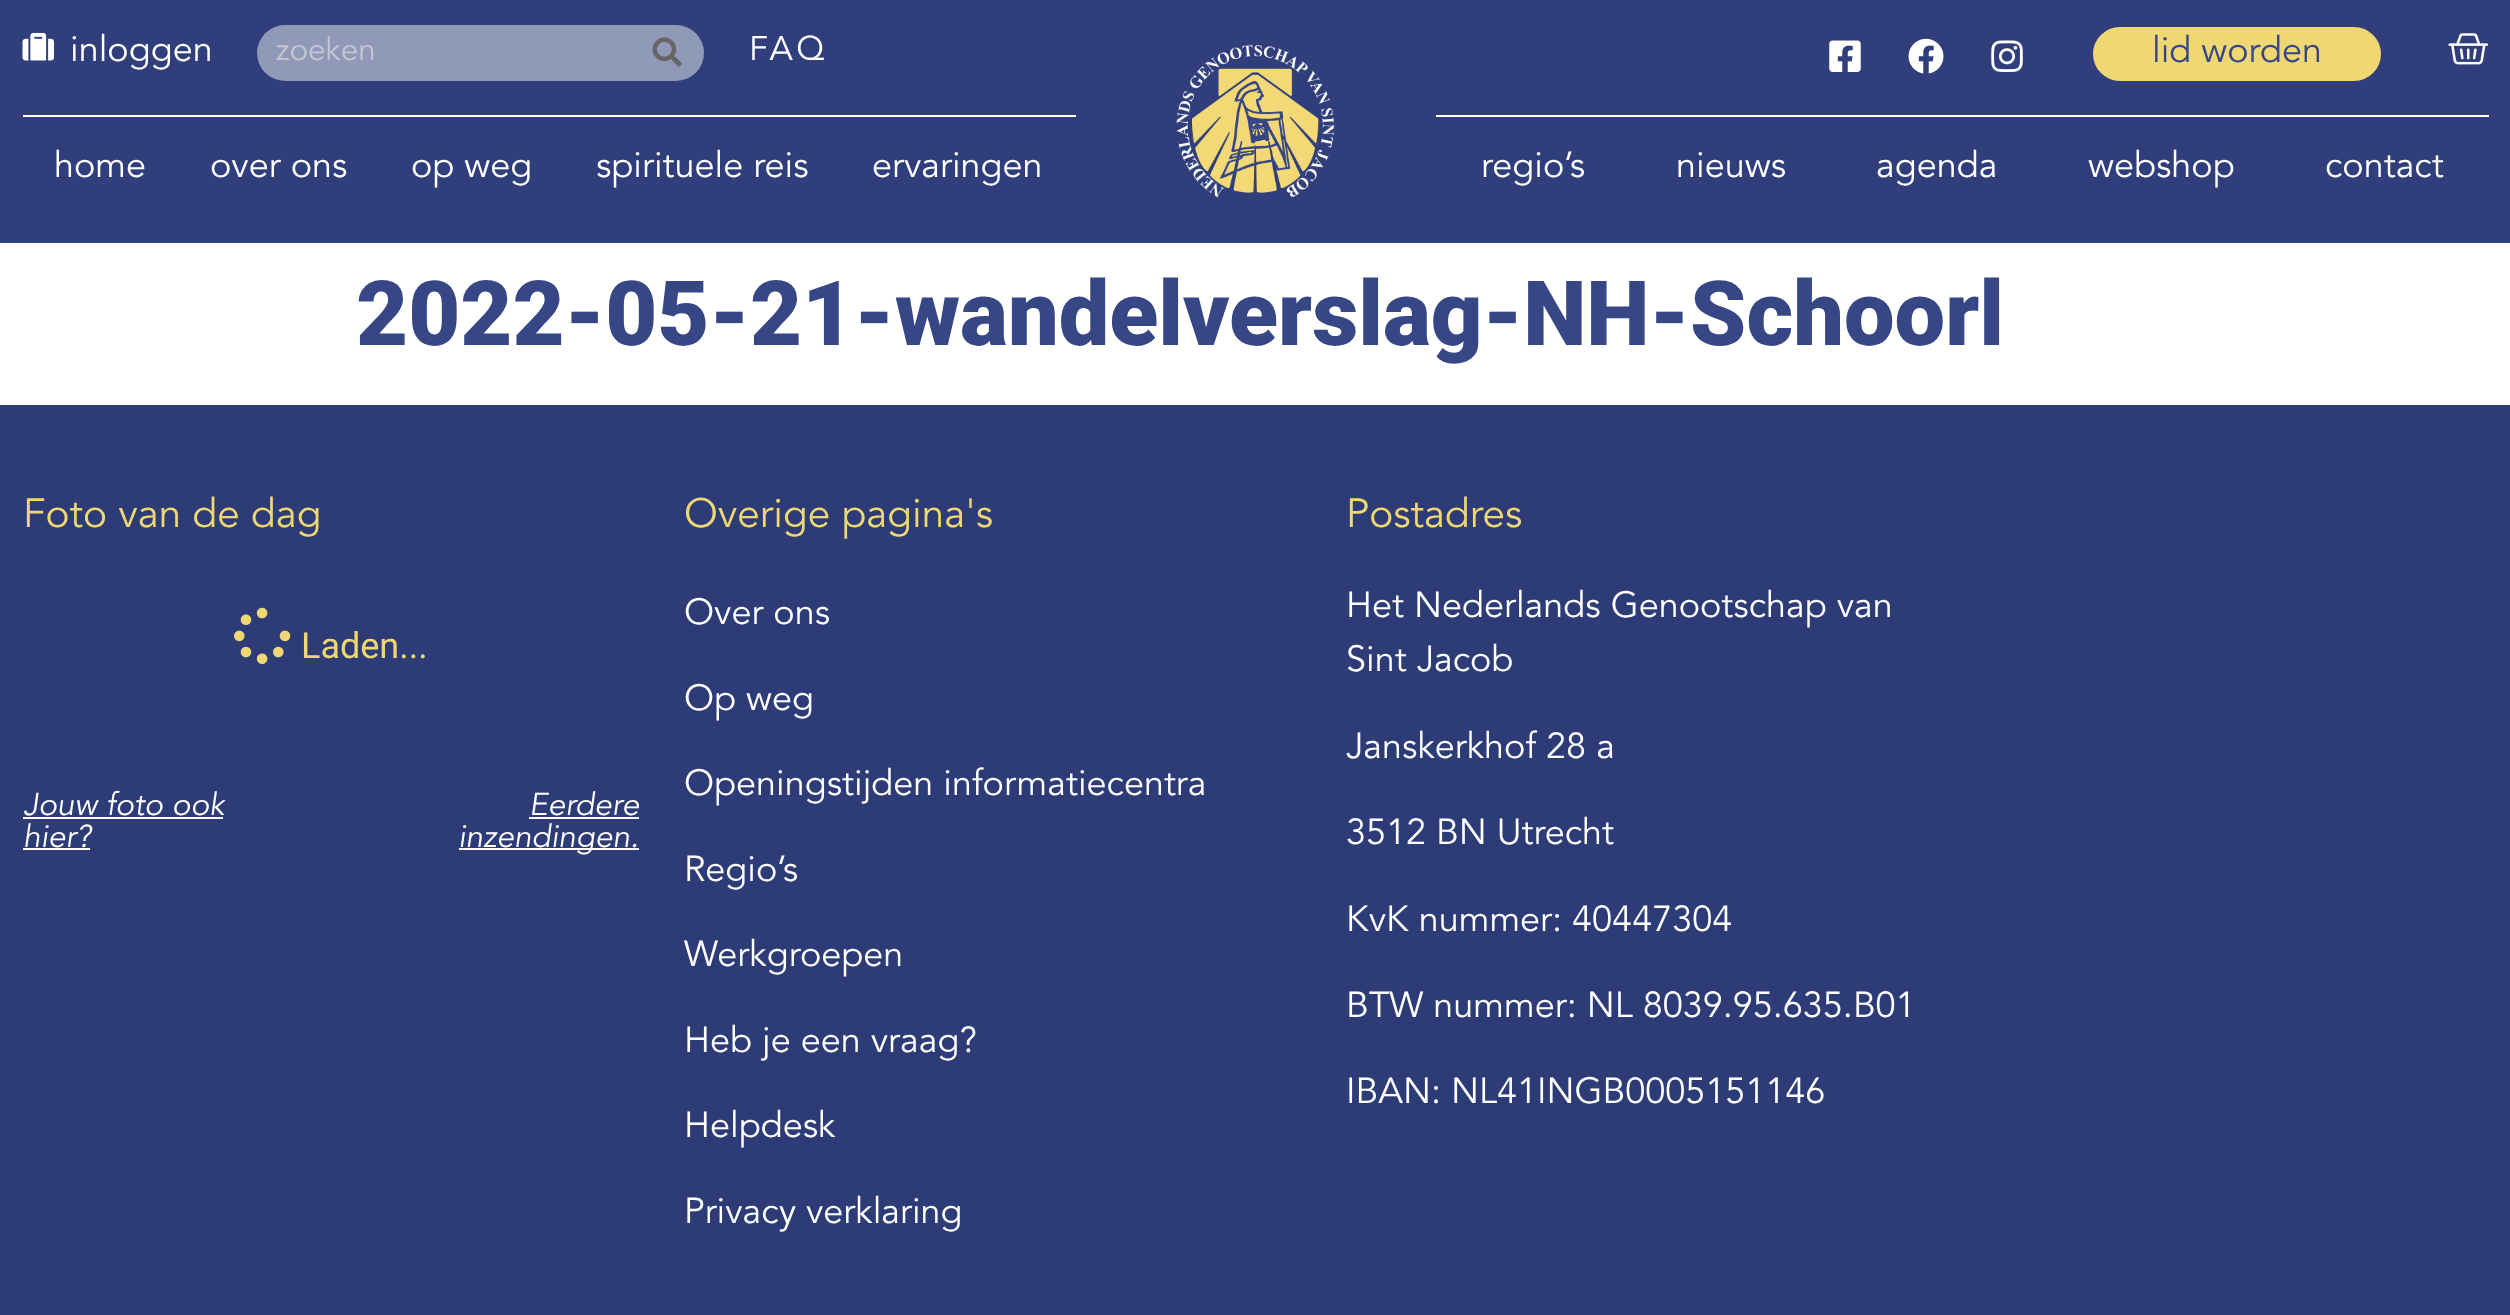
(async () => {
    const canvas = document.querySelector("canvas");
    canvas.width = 2510;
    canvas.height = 1315;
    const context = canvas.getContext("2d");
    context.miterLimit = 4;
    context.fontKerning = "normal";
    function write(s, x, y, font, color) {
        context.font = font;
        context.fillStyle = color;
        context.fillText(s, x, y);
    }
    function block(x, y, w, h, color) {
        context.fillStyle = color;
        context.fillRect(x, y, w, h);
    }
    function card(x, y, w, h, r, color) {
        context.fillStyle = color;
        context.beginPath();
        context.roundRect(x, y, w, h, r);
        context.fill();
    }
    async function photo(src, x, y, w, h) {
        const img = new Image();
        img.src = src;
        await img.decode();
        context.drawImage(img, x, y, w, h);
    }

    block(0, 0, 2510, 1315, "rgb(255, 255, 255)");
    block(0, 0, 2510, 243, "rgb(48, 63, 123)");
    await photo("media/1.png", 22, 32, 32, 29);
    write("inloggen", 70, 61, "36px Avenir", "rgb(255, 255, 255)");
    card(257, 25, 447, 56, 28, "rgb(145, 153, 185)");
    write("zoeken", 276, 60, "31.5px Avenir", "rgb(195, 198, 211)");
    await photo("media/2.png", 652, 37, 30, 30);
    context.letterSpacing = "3.5px";
    write("FAQ", 749, 60, "34px Avenir", "rgb(255, 255, 255)");
    block(23, 115, 1053, 2, "rgb(255, 255, 255)");
    context.letterSpacing = "0px";
    write("home", 54, 177, "36px Avenir", "rgb(255, 255, 255)");
    write("over ons", 210, 177, "36px Avenir", "rgb(255, 255, 255)");
    write("op weg", 411, 177, "36px Avenir", "rgb(255, 255, 255)");
    write("spirituele reis", 596, 177, "36px Avenir", "rgb(255, 255, 255)");
    write("ervaringen", 872, 177, "36px Avenir", "rgb(255, 255, 255)");
    await photo("media/3.png", 1176, 45, 159, 153);
    await photo("media/4.png", 1829, 40, 32, 32);
    await photo("media/5.png", 1908, 38, 36, 36);
    await photo("media/6.png", 1991, 40, 32, 32);
    context.fillStyle = "rgb(239, 215, 115)";
    context.beginPath();
    context.roundRect(2094, 28, 286, 52, 26);
    context.fill();
    context.strokeStyle = "rgb(239, 215, 115)";
    context.lineWidth = 2;
    context.stroke();
    write("lid worden", 2152, 62, "36px Avenir", "rgb(55, 71, 133)");
    await photo("media/7.png", 2448, 33, 41, 32);
    block(1436, 115, 1053, 2, "rgb(255, 255, 255)");
    write("regio’s", 1481, 177, "36px Avenir", "rgb(255, 255, 255)");
    write("nieuws", 1676, 177, "36px Avenir", "rgb(255, 255, 255)");
    write("agenda", 1876, 177, "36px Avenir", "rgb(255, 255, 255)");
    write("webshop", 2088, 177, "36px Avenir", "rgb(255, 255, 255)");
    write("contact", 2325, 177, "36px Avenir", "rgb(255, 255, 255)");
    write("2022-05-21-wandelverslag-NH-Schoorl", 356, 345, "900 90px Roboto", "rgb(55, 71, 133)");
    block(0, 405, 2510, 910, "rgb(45, 60, 119)");
    write("Foto van de dag", 23, 527, "40.5px Avenir", "rgb(239, 215, 115)");
    await photo("media/8.png", 234, 607, 57, 57);
    write("Laden...", 301, 658, "36px Roboto", "rgb(239, 215, 115)");
    write("Jouw foto ook", 23, 815, "italic 31.5px Avenir", "rgb(255, 255, 255)");
    block(23, 817, 200, 2, "rgb(255, 255, 255)");
    write("hier?", 23, 847, "italic 31.5px Avenir", "rgb(255, 255, 255)");
    block(23, 848, 67, 2, "rgb(255, 255, 255)");
    write("Eerdere", 529, 815, "italic 31.5px Avenir", "rgb(255, 255, 255)");
    block(529, 817, 110, 2, "rgb(255, 255, 255)");
    block(459, 848, 180, 2, "rgb(255, 255, 255)");
    write("inzendingen.", 458, 847, "italic 31.5px Avenir", "rgb(255, 255, 255)");
    write("Overige pagina's", 684, 527, "40.5px Avenir", "rgb(239, 215, 115)");
    write("Over ons", 684, 624, "36px Avenir", "rgb(255, 255, 255)");
    write("Op weg", 684, 710, "36px Avenir", "rgb(255, 255, 255)");
    write("Openingstijden informatiecentra", 684, 795, "36px Avenir", "rgb(255, 255, 255)");
    write("Regio’s", 684, 881, "36px Avenir", "rgb(255, 255, 255)");
    write("Werkgroepen", 684, 966, "36px Avenir", "rgb(255, 255, 255)");
    write("Heb je een vraag?", 684, 1052, "36px Avenir", "rgb(255, 255, 255)");
    write("Helpdesk", 684, 1137, "36px Avenir", "rgb(255, 255, 255)");
    write("Privacy verklaring", 684, 1223, "36px Avenir", "rgb(255, 255, 255)");
    write("Postadres", 1346, 527, "40.5px Avenir", "rgb(239, 215, 115)");
    write("Het Nederlands Genootschap van", 1346, 617, "36px Avenir", "rgb(255, 255, 255)");
    write("Sint Jacob", 1346, 671, "36px Avenir", "rgb(255, 255, 255)");
    write("Janskerkhof 28 a", 1346, 758, "36px Avenir", "rgb(255, 255, 255)");
    write("3512 BN Utrecht", 1346, 844, "36px Avenir", "rgb(255, 255, 255)");
    write("KvK nummer: 40447304", 1346, 931, "36px Avenir", "rgb(255, 255, 255)");
    write("BTW nummer: NL 8039.95.635.B01", 1346, 1017, "36px Avenir", "rgb(255, 255, 255)");
    write("IBAN: NL41INGB0005151146", 1346, 1103, "36px Avenir", "rgb(255, 255, 255)");
})();
